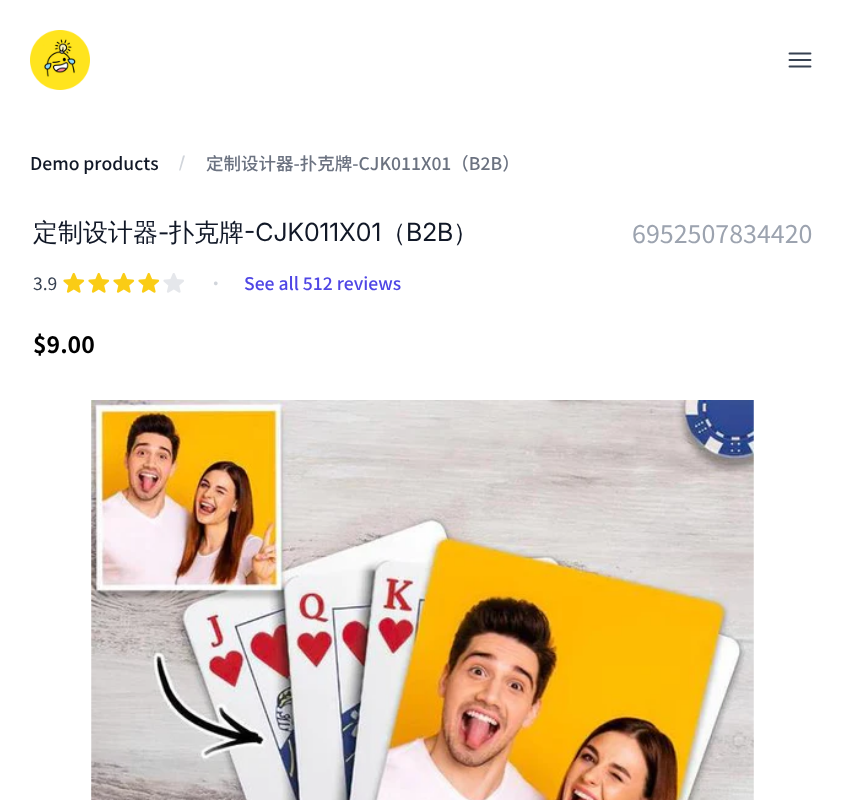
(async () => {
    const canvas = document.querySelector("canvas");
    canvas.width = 845;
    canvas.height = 800;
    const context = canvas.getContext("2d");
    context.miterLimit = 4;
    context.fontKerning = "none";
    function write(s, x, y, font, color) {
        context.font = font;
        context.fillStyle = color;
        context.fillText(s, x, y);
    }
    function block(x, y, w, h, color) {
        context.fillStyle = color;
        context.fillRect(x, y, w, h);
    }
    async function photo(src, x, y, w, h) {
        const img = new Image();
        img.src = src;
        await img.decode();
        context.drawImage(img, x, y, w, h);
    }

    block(0, 0, 845, 800, "rgb(255, 255, 255)");
    await photo("media/1.png", 30, 30, 60, 60);
    context.beginPath();
    context.moveTo(789.5, 53.5);
    context.lineTo(810.5, 53.5);
    context.moveTo(789.5, 60);
    context.lineTo(810.5, 60);
    context.moveTo(789.5, 66.5);
    context.lineTo(810.5, 66.5);
    context.strokeStyle = "rgb(55, 65, 81)";
    context.lineWidth = 1.9;
    context.lineCap = "round";
    context.lineJoin = "round";
    context.stroke();
    write("Demo products", 30, 170, "500 17.5px Noto Sans SC", "rgb(17, 24, 39)");
    context.fillStyle = "rgb(209, 213, 219)";
    context.beginPath();
    context.moveTo(185, 155.5);
    context.lineTo(183, 155.5);
    context.lineTo(179, 170.5);
    context.lineTo(180.5, 170.5);
    context.closePath();
    context.fill();
    write("定制设计器-扑克牌-CJK011X01（B2B）", 206, 170, "500 17.5px Noto Sans SC", "rgb(107, 114, 128)");
    write("定制设计器", 33, 241, "500 25px WenQuanYi Zen Hei", "rgb(17, 24, 39)");
    write("-", 158, 241, "25px Inter", "rgb(17, 24, 39)");
    write("扑克牌", 169, 241, "500 25px WenQuanYi Zen Hei", "rgb(17, 24, 39)");
    write("-CJK011X01", 244, 241, "25px Inter", "rgb(17, 24, 39)");
    write("（", 381, 241, "500 25px WenQuanYi Zen Hei", "rgb(17, 24, 39)");
    write("B2B", 406, 241, "25px Inter", "rgb(17, 24, 39)");
    write("）", 453, 241, "500 25px WenQuanYi Zen Hei", "rgb(17, 24, 39)");
    write("6952507834420", 632, 243, "25px Noto Sans SC", "rgb(156, 163, 175)");
    write("3.9", 33, 290, "17.5px Noto Sans SC", "rgb(55, 65, 81)");
    await photo("media/2.png", 63, 272, 22, 21);
    await photo("media/2.png", 88, 272, 22, 21);
    await photo("media/2.png", 113, 272, 22, 21);
    await photo("media/2.png", 138, 272, 22, 21);
    await photo("media/3.png", 163, 273, 21, 20);
    write("·", 207, 290, "17.5px Noto Sans SC", "rgb(209, 213, 219)");
    write("See all 512 reviews", 244, 290, "500 17.5px Noto Sans SC", "rgb(79, 70, 229)");
    write("$9.00", 33, 353, "bold 23px Noto Sans SC", "rgb(0, 0, 0)");
    await photo("media/4.png", 91, 400, 663, 400);
})();
